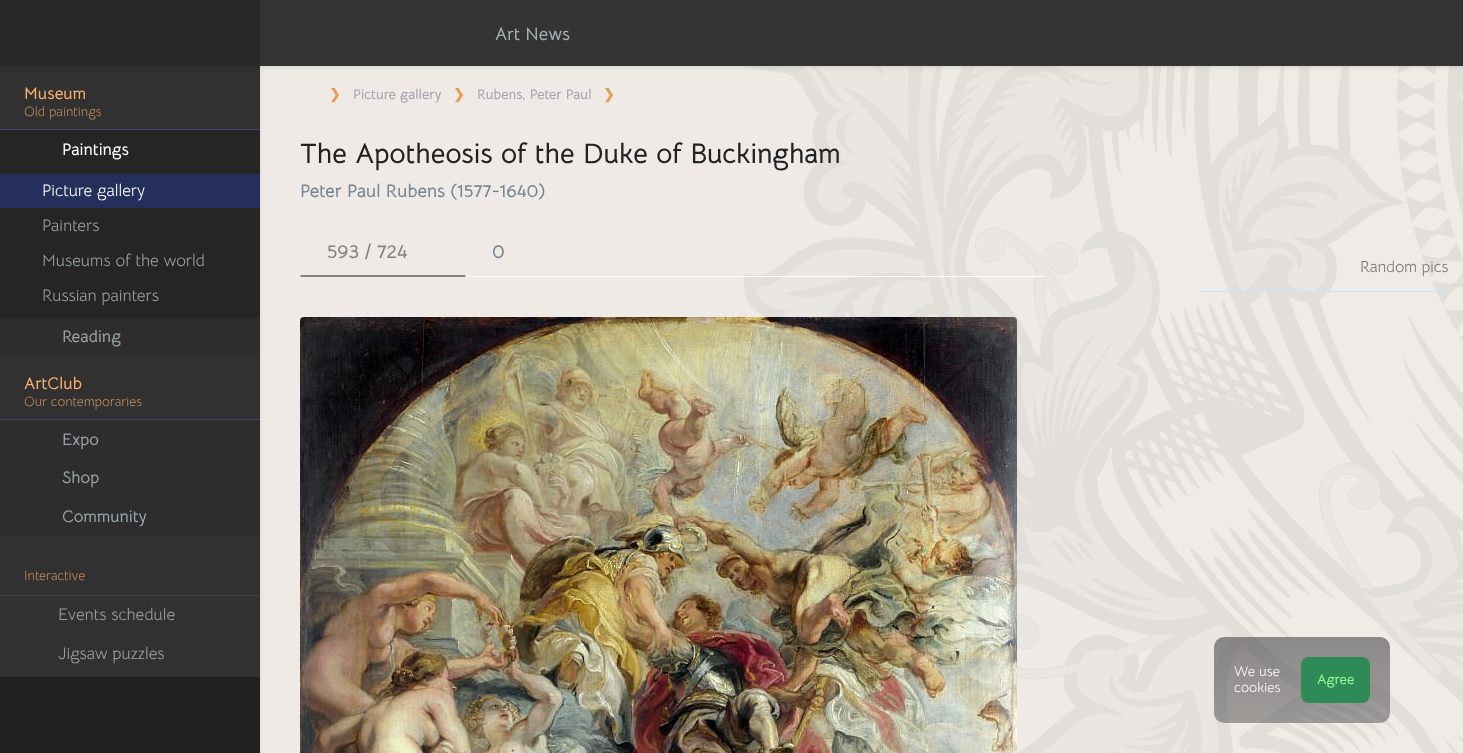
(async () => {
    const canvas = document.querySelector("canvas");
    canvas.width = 1463;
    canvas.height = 753;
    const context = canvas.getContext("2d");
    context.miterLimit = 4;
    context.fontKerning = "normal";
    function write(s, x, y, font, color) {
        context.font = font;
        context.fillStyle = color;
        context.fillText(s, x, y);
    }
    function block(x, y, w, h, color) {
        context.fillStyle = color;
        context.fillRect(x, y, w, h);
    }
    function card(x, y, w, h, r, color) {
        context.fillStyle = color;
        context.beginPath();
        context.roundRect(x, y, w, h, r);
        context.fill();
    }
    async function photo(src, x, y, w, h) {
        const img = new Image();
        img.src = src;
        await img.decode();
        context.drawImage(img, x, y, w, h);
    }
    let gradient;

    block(0, 0, 1463, 753, "rgb(239, 234, 229)");
    context.fillStyle = "rgba(0, 0, 0, 0.08)";
    context.filter = "blur(2px)";
    context.beginPath();
    context.rect(0, 68, 260, 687);
    context.fill();
    context.filter = "none";
    block(0, 66, 260, 611, "rgb(49, 49, 49)");
    await photo("media/1.png", 743, 66, 720, 687);
    context.fillStyle = "rgba(0, 0, 0, 0.08)";
    context.filter = "blur(2px)";
    context.beginPath();
    context.rect(0, 2, 1463, 66);
    context.fill();
    context.filter = "none";
    block(260, 0, 1203, 66, "rgb(52, 52, 52)");
    block(0, 0, 260, 66, "rgb(41, 41, 41)");
    write("Art News", 495, 40, "bold 18px Bellota Text", "rgb(163, 175, 183)");
    block(0, 129, 260, 1, "rgb(53, 75, 113)");
    write("Museum", 24, 99, "bold 16.75px Bellota Text", "rgb(250, 176, 107)");
    write("Old paintings", 24, 116, "13.5px Bellota Text", "rgb(190, 138, 90)");
    block(0, 130, 260, 188, "rgb(37, 37, 37)");
    write("Paintings", 62, 155, "bold 16.75px Bellota Text", "rgb(255, 255, 255)");
    block(0, 174, 260, 34, "rgb(36, 47, 92)");
    write("Picture gallery", 42, 196, "16.75px Bellota Text", "rgb(255, 255, 255)");
    write("Painters", 42, 231, "16.75px Bellota Text", "rgb(150, 161, 168)");
    write("Museums of the world", 42, 266, "16.75px Bellota Text", "rgb(150, 161, 168)");
    write("Russian painters", 42, 301, "16.75px Bellota Text", "rgb(150, 161, 168)");
    block(0, 318, 260, 38, "rgb(45, 45, 45)");
    write("Reading", 62, 342, "bold 16.75px Bellota Text", "rgb(150, 161, 168)");
    block(0, 419, 260, 1, "rgb(53, 75, 113)");
    write("ArtClub", 24, 389, "bold 16.75px Bellota Text", "rgb(250, 176, 107)");
    write("Our contemporaries", 24, 406, "13.5px Bellota Text", "rgb(190, 138, 90)");
    block(0, 420, 260, 116, "rgb(45, 45, 45)");
    write("Expo", 62, 445, "bold 16.75px Bellota Text", "rgb(150, 161, 168)");
    write("Shop", 62, 483, "bold 16.75px Bellota Text", "rgb(150, 161, 168)");
    write("Community", 62, 522, "bold 16.75px Bellota Text", "rgb(150, 161, 168)");
    block(0, 595, 260, 1, "rgb(52, 67, 94)");
    write("Interactive", 24, 580, "13.5px Bellota Text", "rgb(190, 138, 90)");
    write("Events schedule", 58, 620, "16.75px Bellota Text", "rgb(150, 161, 168)");
    write("Jigsaw puzzles", 58, 659, "16.75px Bellota Text", "rgb(150, 161, 168)");
    block(0, 677, 260, 76, "rgb(33, 33, 33)");
    write("❯", 329, 99, "bold 14px DejaVu Sans", "rgb(229, 160, 85)");
    write("Picture gallery", 353, 99, "bold 14px Bellota Text", "rgb(163, 163, 173)");
    write("❯", 453, 99, "bold 14px DejaVu Sans", "rgb(229, 160, 85)");
    write("Rubens, Peter Paul", 477, 99, "bold 14px Bellota Text", "rgb(163, 163, 173)");
    write("❯", 603, 99, "bold 14px DejaVu Sans", "rgb(229, 160, 85)");
    write("The Apotheosis of the Duke of Buckingham", 300, 163, "bold 28px Bellota Text", "rgb(34, 34, 34)");
    write("Peter Paul Rubens (1577-1640)", 300, 197, "bold 18.25px Bellota Text", "rgb(118, 131, 143)");
    block(300, 276, 745, 1, "rgb(255, 255, 255)");
    context.fillStyle = "rgb(131, 131, 131)";
    context.beginPath();
    context.moveTo(466, 277);
    context.lineTo(465, 275);
    context.lineTo(301, 275);
    context.lineTo(300, 277);
    context.closePath();
    context.fill();
    write("593 / 724", 327, 258, "bold 19.5px Bellota Text", "rgb(131, 131, 131)");
    write("0", 492, 258, "bold 19.5px Bellota Text", "rgb(118, 131, 143)");
    await photo("media/2.png", 300, 317, 717, 436);
    write("Random pics", 1360, 272, "16px Bellota Text", "rgb(117, 117, 117)");
    block(1198, 291, 250, 1, "rgb(201, 229, 255)");
    gradient = context.createLinearGradient(1302, 723, 1302, 637);
    gradient.addColorStop(0, "rgba(85, 85, 85, 0.52)");
    gradient.addColorStop(1, "rgba(51, 51, 51, 0.53)");
    context.fillStyle = gradient;
    context.beginPath();
    context.roundRect(1214, 637, 176, 86, 10);
    context.fill();
    write("We use", 1234, 676, "14px Bellota Text", "rgb(255, 255, 255)");
    write("cookies", 1234, 692, "14px Bellota Text", "rgb(255, 255, 255)");
    card(1301, 657, 69, 46, 8, "rgb(46, 139, 87)");
    write("Agree", 1317, 684, "bold 14px Bellota Text", "rgb(152, 251, 152)");
})();
